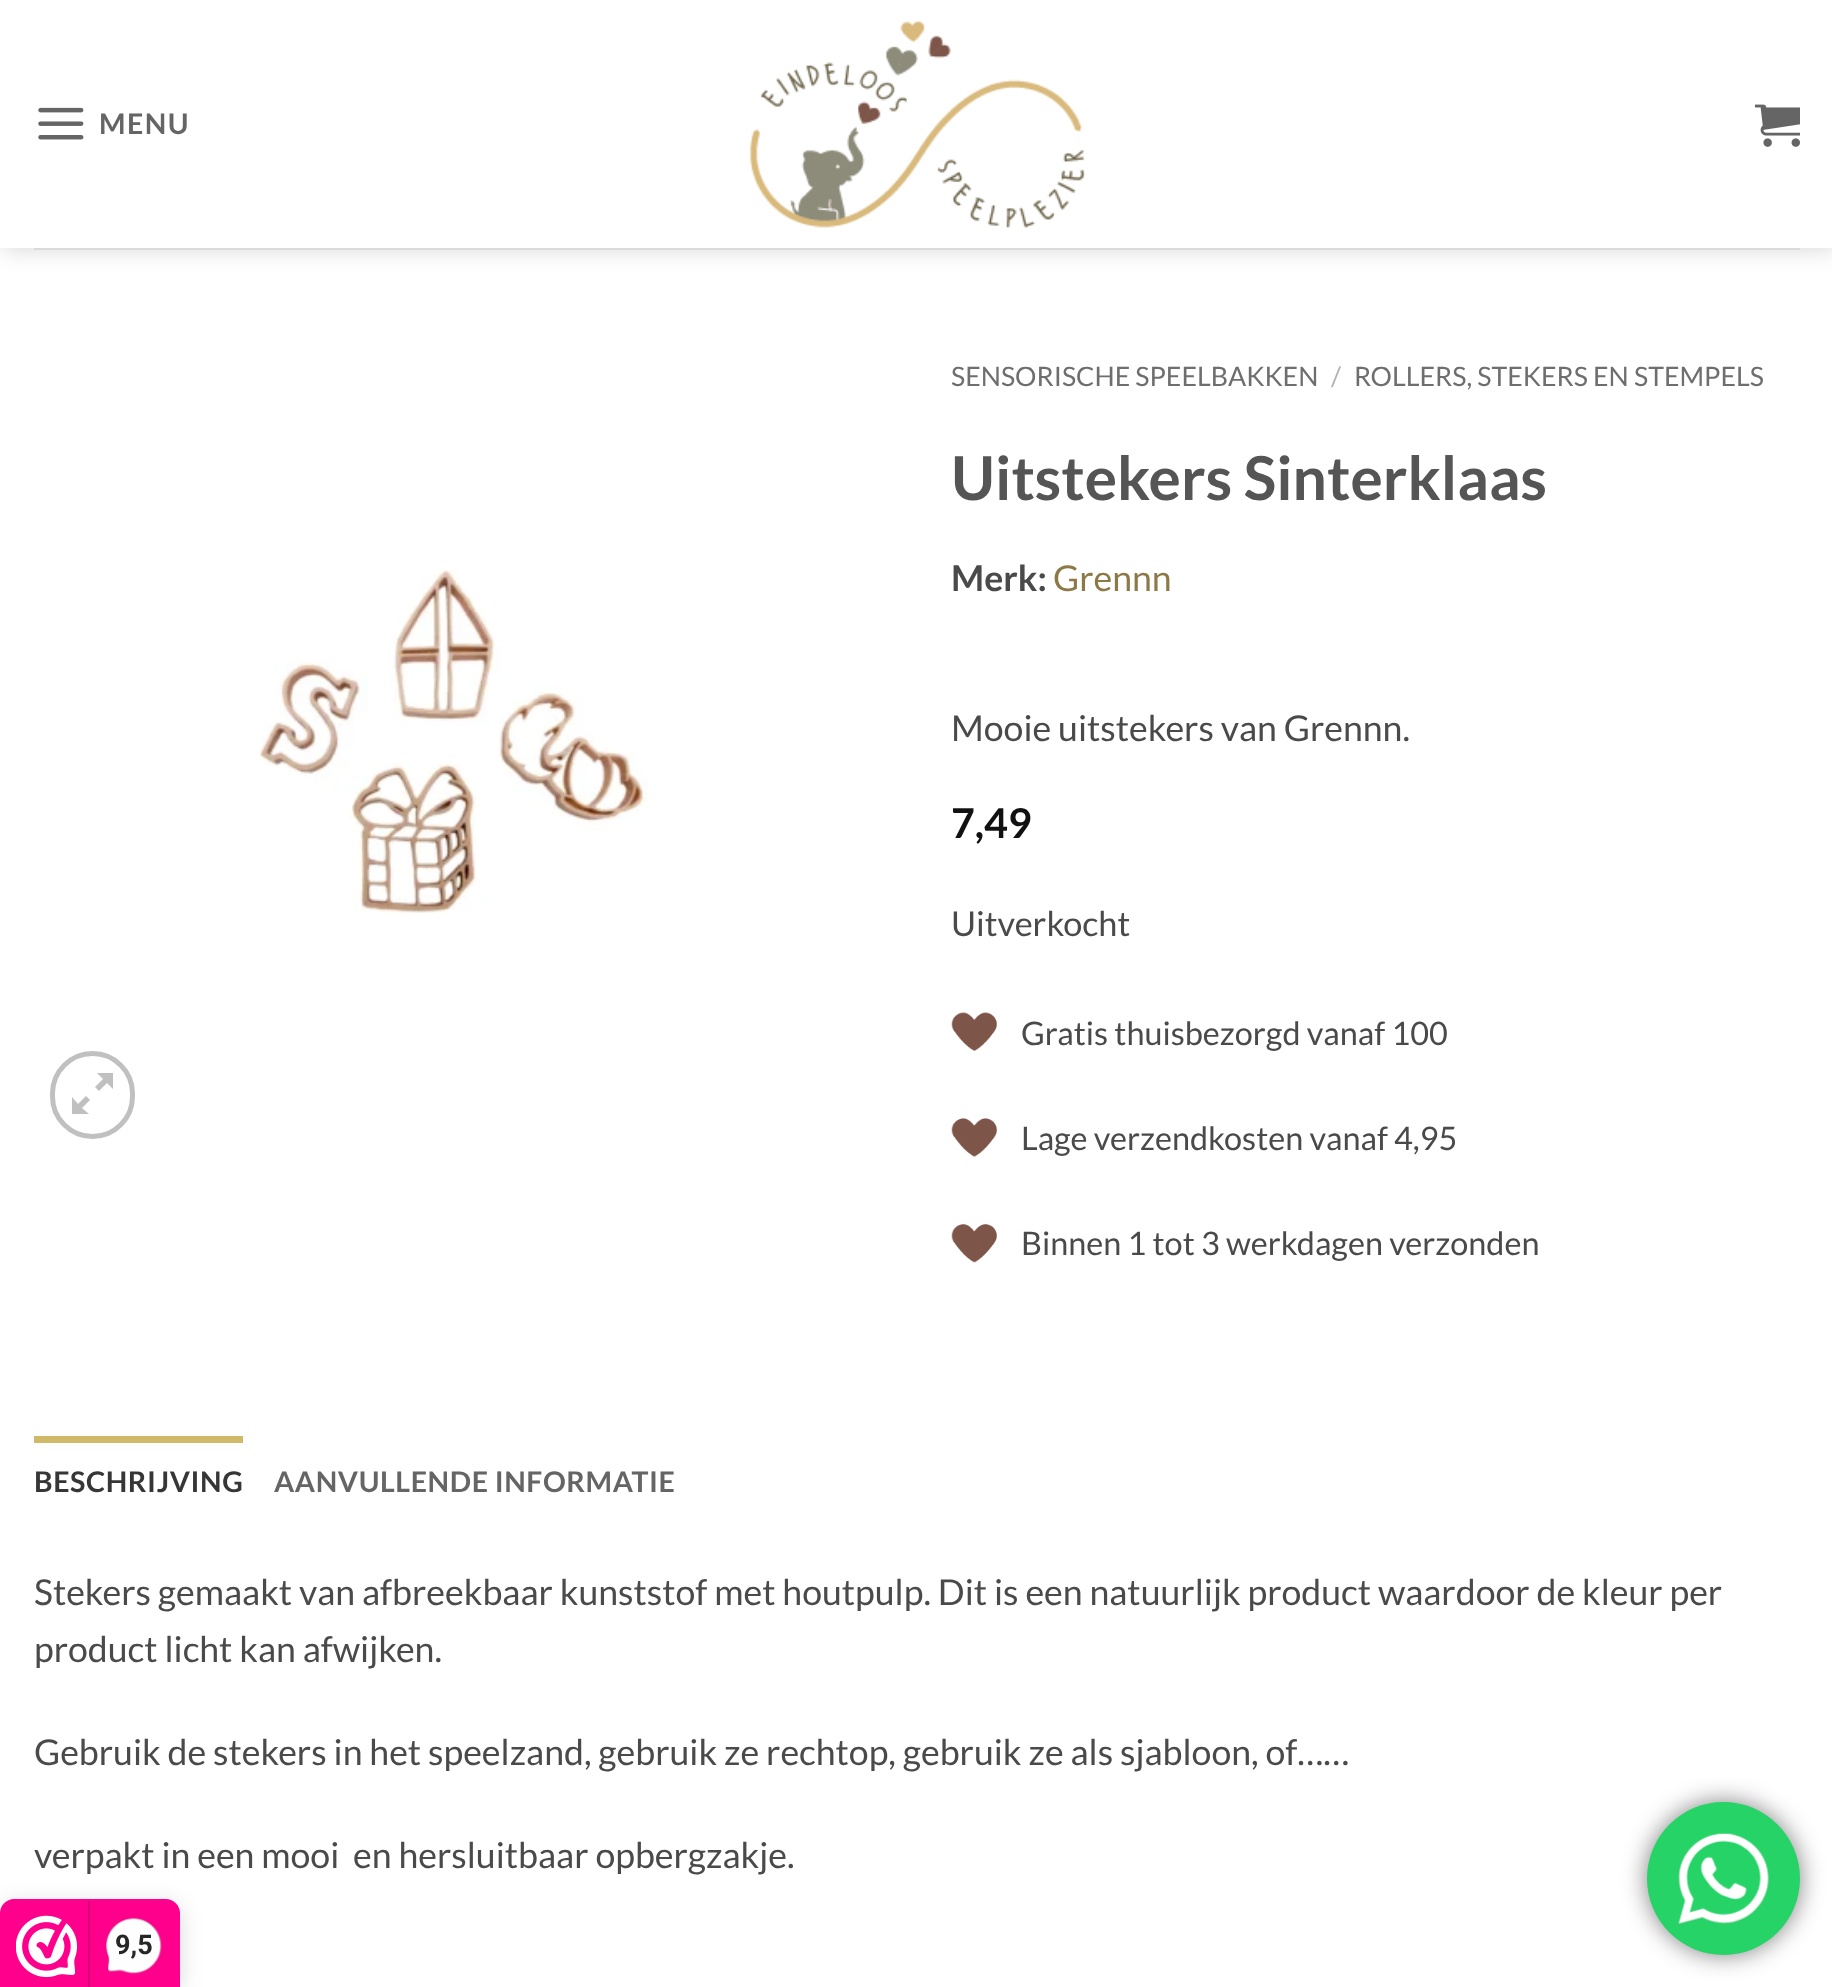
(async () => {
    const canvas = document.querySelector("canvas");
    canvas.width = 1832;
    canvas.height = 1987;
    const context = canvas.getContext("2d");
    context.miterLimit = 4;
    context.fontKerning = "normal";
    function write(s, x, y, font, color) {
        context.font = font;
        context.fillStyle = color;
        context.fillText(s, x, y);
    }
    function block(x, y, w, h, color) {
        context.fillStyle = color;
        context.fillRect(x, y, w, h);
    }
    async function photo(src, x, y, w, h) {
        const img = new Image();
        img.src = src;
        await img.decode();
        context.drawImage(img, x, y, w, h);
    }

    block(0, 0, 1832, 1987, "rgb(255, 255, 255)");
    context.save();
    context.beginPath();
    context.moveTo(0, 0);
    context.lineTo(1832, 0);
    context.lineTo(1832, 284);
    context.lineTo(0, 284);
    context.closePath();
    context.moveTo(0, 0);
    context.lineTo(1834, 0);
    context.lineTo(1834, 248);
    context.lineTo(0, 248);
    context.closePath();
    context.clip("evenodd");
    context.fillStyle = "rgba(0, 0, 0, 0.15)";
    context.filter = "blur(11px)";
    context.beginPath();
    context.rect(2, 2, 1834, 248);
    context.fill();
    context.filter = "none";
    context.restore();
    await photo("media/1.png", 38, 107, 46, 33);
    context.letterSpacing = "1.5px";
    write("MENU", 99, 134, "bold 28.5px Lato", "rgb(101, 101, 101)");
    await photo("media/2.png", 750, 20, 336, 208);
    await photo("media/3.png", 1755, 104, 45, 43);
    block(34, 248, 1766, 2, "rgb(218, 218, 218)");
    block(0, 247, 1832, 1, "rgba(255, 255, 255, 0.9)");
    await photo("media/4.png", 259, 570, 389, 343);
    context.beginPath();
    context.roundRect(52.5, 1053.5, 80, 83, 40);
    context.strokeStyle = "rgb(192, 192, 192)";
    context.lineWidth = 5;
    context.stroke();
    context.fillStyle = "rgb(192, 192, 192)";
    context.beginPath();
    context.moveTo(113, 1073);
    context.lineTo(113, 1089);
    context.lineTo(107, 1083);
    context.lineTo(99, 1091);
    context.lineTo(95, 1087);
    context.lineTo(103, 1079);
    context.lineTo(97, 1073);
    context.closePath();
    context.moveTo(90, 1100);
    context.lineTo(82, 1108);
    context.lineTo(89, 1114);
    context.lineTo(72, 1114);
    context.lineTo(72, 1097);
    context.lineTo(78, 1104);
    context.lineTo(86, 1096);
    context.closePath();
    context.fill();
    context.letterSpacing = "0px";
    write("SENSORISCHE SPEELBAKKEN", 951, 386, "26.75px Lato", "rgb(110, 110, 110)");
    write("/", 1331, 386, "26.75px Lato", "rgb(178, 178, 178)");
    write("ROLLERS, STEKERS EN STEMPELS", 1354, 386, "26.75px Lato", "rgb(110, 110, 110)");
    write("Uitstekers Sinterklaas", 951, 500, "bold 60.5px Lato", "rgb(85, 85, 85)");
    write("Merk:", 951, 591, "bold 35.65px Lato", "rgb(74, 74, 74)");
    write("Grennn", 1053, 591, "35.65px Lato", "rgb(141, 121, 72)");
    write("Mooie uitstekers van Grennn.", 951, 741, "35.65px Lato", "rgb(74, 74, 74)");
    write("7,49", 951, 838, "bold 41px Lato", "rgb(17, 17, 17)");
    write("Uitverkocht", 951, 936, "34.25px Lato", "rgb(74, 74, 74)");
    await photo("media/5.png", 951, 1012, 46, 39);
    write("Gratis thuisbezorgd vanaf 100", 1021, 1045, "32.4px Lato", "rgb(74, 74, 74)");
    await photo("media/6.png", 951, 1118, 46, 39);
    write("Lage verzendkosten vanaf 4,95", 1021, 1150, "32.4px Lato", "rgb(74, 74, 74)");
    await photo("media/7.png", 951, 1224, 46, 39);
    write("Binnen 1 tot 3 werkdagen verzonden", 1021, 1255, "32.4px Lato", "rgb(74, 74, 74)");
    block(34, 1436, 209, 7, "rgb(208, 186, 106)");
    context.letterSpacing = "0.6px";
    write("BESCHRIJVING", 34, 1492, "bold 28.5px Lato", "rgb(54, 54, 54)");
    write("AANVULLENDE INFORMATIE", 274, 1492, "bold 28.5px Lato", "rgb(101, 101, 101)");
    context.letterSpacing = "0px";
    write("Stekers gemaakt van afbreekbaar kunststof met houtpulp. Dit is een natuurlijk product waardoor de kleur per", 34, 1605, "35.65px Lato", "rgb(74, 74, 74)");
    write("product licht kan afwijken.", 34, 1662, "35.65px Lato", "rgb(74, 74, 74)");
    write("Gebruik de stekers in het speelzand, gebruik ze rechtop, gebruik ze als sjabloon, of……", 34, 1765, "35.65px Lato", "rgb(74, 74, 74)");
    write("verpakt in een mooi  en hersluitbaar opbergzakje.", 34, 1868, "35.65px Lato", "rgb(74, 74, 74)");
    context.fillStyle = "rgba(0, 0, 0, 0.15)";
    context.filter = "blur(11px)";
    context.beginPath();
    context.roundRect(0, 1904, 180, 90, 14);
    context.fill();
    context.filter = "none";
    context.fillStyle = "rgb(254, 0, 140)";
    context.beginPath();
    context.moveTo(14, 1899);
    context.lineTo(166, 1899);
    context.bezierCurveTo(173.5, 1899, 180, 1905.5, 180, 1913);
    context.lineTo(180, 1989);
    context.lineTo(0, 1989);
    context.lineTo(0, 1913);
    context.bezierCurveTo(0, 1905.5, 6.5, 1899, 14, 1899);
    context.closePath();
    context.fill();
    await photo("media/8.png", 16, 1915, 61, 63);
    block(88, 1901, 2, 86, "rgb(216, 0, 119)");
    await photo("media/9.png", 106, 1918, 56, 57);
    write("9,5", 115, 1954, "bold 27px Roboto", "rgb(39, 38, 38)");
    context.fillStyle = "rgba(0, 0, 0, 0.5)";
    context.filter = "blur(12.5px)";
    context.beginPath();
    context.roundRect(1647, 1802, 153, 153, 76.5);
    context.fill();
    context.filter = "none";
    context.fillStyle = "rgb(37, 211, 102)";
    context.beginPath();
    context.arc(1723.5, 1878.5, 76.5, 0, Math.PI * 2);
    context.fill();
    await photo("media/10.png", 1678, 1833, 91, 91);
})();
